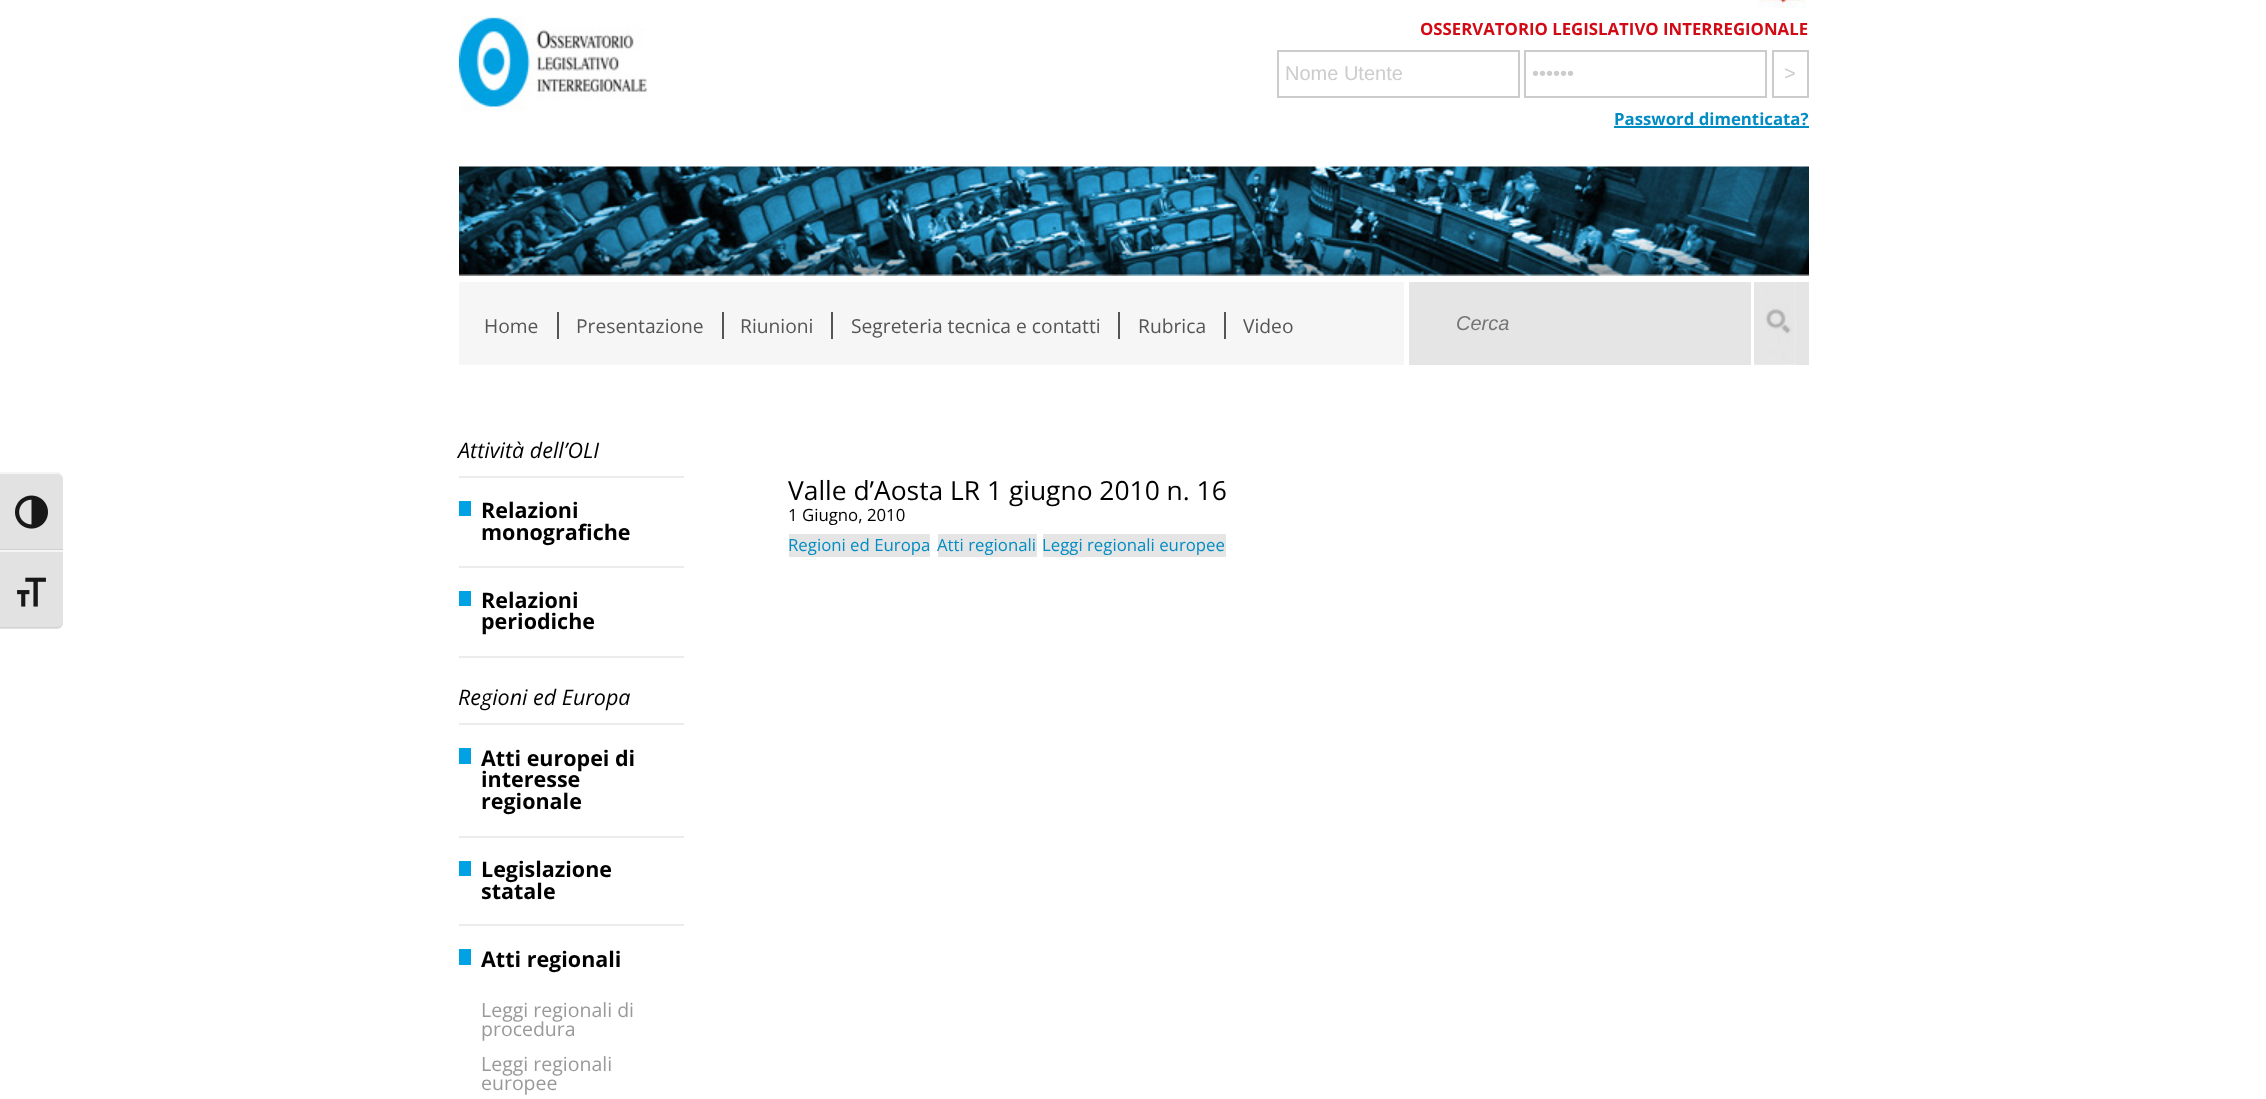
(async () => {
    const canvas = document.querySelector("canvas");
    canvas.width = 2266;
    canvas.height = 1099;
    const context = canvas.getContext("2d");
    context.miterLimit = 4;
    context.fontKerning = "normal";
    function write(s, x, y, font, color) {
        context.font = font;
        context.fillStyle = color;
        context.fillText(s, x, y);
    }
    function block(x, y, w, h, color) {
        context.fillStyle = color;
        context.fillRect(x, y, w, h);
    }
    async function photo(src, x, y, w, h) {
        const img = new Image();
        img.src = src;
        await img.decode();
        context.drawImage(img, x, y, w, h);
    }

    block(0, 0, 2266, 1099, "rgb(255, 255, 255)");
    context.fillStyle = "rgb(226, 226, 226)";
    context.beginPath();
    context.roundRect(0, 473, 63, 78, [0, 6, 0, 0]);
    context.fill();
    context.fillStyle = "rgb(245, 245, 245)";
    context.beginPath();
    context.moveTo(0, 474);
    context.lineTo(57, 474);
    context.bezierCurveTo(60, 474, 63, 476, 63, 478);
    context.bezierCurveTo(63, 476, 61, 473, 59, 472);
    context.lineTo(0, 472);
    context.closePath();
    context.fill();
    block(0, 549, 63, 1, "rgb(210, 210, 210)");
    await photo("media/1.png", 15, 495, 33, 34);
    context.fillStyle = "rgb(226, 226, 226)";
    context.beginPath();
    context.roundRect(0, 551, 63, 78, [0, 0, 6, 0]);
    context.fill();
    block(0, 550, 63, 2, "rgb(245, 245, 245)");
    context.fillStyle = "rgb(210, 210, 210)";
    context.beginPath();
    context.moveTo(0, 627);
    context.lineTo(0, 628);
    context.lineTo(57, 628);
    context.bezierCurveTo(60, 628, 63, 626, 63, 622);
    context.bezierCurveTo(63, 625, 60, 627, 57, 627);
    context.closePath();
    context.fill();
    await photo("media/2.png", 17, 577, 29, 30);
    await photo("media/3.png", 1758, 0, 48, 8);
    await photo("media/4.png", 459, 16, 189, 95);
    write("OSSERVATORIO LEGISLATIVO INTERREGIONALE", 1420, 35, "bold 16.8px Open Sans", "rgb(210, 10, 21)");
    context.strokeStyle = "rgb(204, 204, 204)";
    context.lineWidth = 2;
    context.strokeRect(1278, 51, 241, 46);
    write("Nome Utente", 1285, 80, "20px Liberation Sans", "rgb(204, 204, 204)");
    context.strokeRect(1525, 51, 241, 46);
    write("••••••", 1532, 80, "20px Liberation Sans", "rgb(204, 204, 204)");
    context.strokeRect(1773, 51, 35, 46);
    write(">", 1784, 80, "20px Liberation Sans", "rgb(204, 204, 204)");
    write("Password dimenticata?", 1614, 125, "bold 16.8px Open Sans", "rgb(1, 140, 196)");
    block(1614, 126, 195, 2, "rgb(1, 140, 196)");
    await photo("media/5.png", 459, 166, 1350, 110);
    block(459, 282, 945, 83, "rgb(246, 246, 246)");
    block(557, 312, 2, 27, "rgb(85, 85, 85)");
    write("Home", 484, 333, "19.25px Open Sans", "rgb(85, 85, 85)");
    block(722, 312, 2, 27, "rgb(85, 85, 85)");
    write("Presentazione", 576, 333, "19.25px Open Sans", "rgb(85, 85, 85)");
    block(831, 312, 2, 27, "rgb(85, 85, 85)");
    write("Riunioni", 740, 333, "19.25px Open Sans", "rgb(85, 85, 85)");
    block(1118, 312, 2, 27, "rgb(85, 85, 85)");
    write("Segreteria tecnica e contatti", 851, 333, "19.25px Open Sans", "rgb(85, 85, 85)");
    block(1224, 312, 2, 27, "rgb(85, 85, 85)");
    write("Rubrica", 1138, 333, "19.25px Open Sans", "rgb(85, 85, 85)");
    write("Video", 1243, 333, "19.25px Open Sans", "rgb(85, 85, 85)");
    block(1409, 282, 400, 83, "rgb(229, 229, 229)");
    write("Cerca", 1456, 330, "italic 20px Liberation Sans", "rgb(117, 117, 117)");
    block(1754, 282, 42, 83, "rgb(239, 239, 239)");
    await photo("media/6.png", 1754, 282, 42, 83);
    block(1751, 282, 3, 83, "rgb(255, 255, 255)");
    write("Attività dell’OLI", 458, 458, "italic 21.5px Open Sans", "rgb(0, 0, 0)");
    block(459, 476, 225, 2, "rgb(236, 236, 236)");
    block(459, 501, 12, 15, "rgb(0, 162, 227)");
    block(459, 566, 225, 2, "rgb(236, 236, 236)");
    write("Relazioni", 481, 518, "bold 21.5px Open Sans", "rgb(0, 0, 0)");
    write("monografiche", 481, 540, "bold 21.5px Open Sans", "rgb(0, 0, 0)");
    block(459, 591, 12, 15, "rgb(0, 162, 227)");
    block(459, 656, 225, 2, "rgb(236, 236, 236)");
    write("Relazioni", 481, 608, "bold 21.5px Open Sans", "rgb(0, 0, 0)");
    write("periodiche", 481, 629, "bold 21.5px Open Sans", "rgb(0, 0, 0)");
    write("Regioni ed Europa", 458, 705, "italic 21.5px Open Sans", "rgb(0, 0, 0)");
    block(459, 723, 225, 2, "rgb(236, 236, 236)");
    block(459, 748, 12, 16, "rgb(0, 162, 227)");
    block(459, 836, 225, 2, "rgb(236, 236, 236)");
    write("Atti europei di", 481, 766, "bold 21.5px Open Sans", "rgb(0, 0, 0)");
    write("interesse", 481, 787, "bold 21.5px Open Sans", "rgb(0, 0, 0)");
    write("regionale", 481, 809, "bold 21.5px Open Sans", "rgb(0, 0, 0)");
    block(459, 861, 12, 15, "rgb(0, 162, 227)");
    block(459, 924, 225, 2, "rgb(236, 236, 236)");
    write("Legislazione", 481, 877, "bold 21.5px Open Sans", "rgb(0, 0, 0)");
    write("statale", 481, 899, "bold 21.5px Open Sans", "rgb(0, 0, 0)");
    block(459, 949, 12, 16, "rgb(0, 162, 227)");
    write("Atti regionali", 481, 967, "bold 21.5px Open Sans", "rgb(0, 0, 0)");
    write("Leggi regionali di", 481, 1017, "19.5px Open Sans", "rgb(153, 153, 153)");
    write("procedura", 481, 1036, "19.5px Open Sans", "rgb(153, 153, 153)");
    write("Leggi regionali", 481, 1071, "19.5px Open Sans", "rgb(153, 153, 153)");
    write("europee", 481, 1090, "19.5px Open Sans", "rgb(153, 153, 153)");
    write("Valle d’Aosta LR 1 giugno 2010 n. 16", 788, 500, "26.4px Open Sans", "rgb(0, 0, 0)");
    write("1 Giugno, 2010", 788, 521, "16.8px Open Sans", "rgb(0, 0, 0)");
    block(789, 534, 141, 23, "rgb(229, 229, 229)");
    write("Regioni ed Europa", 788, 551, "16.8px Open Sans", "rgb(1, 140, 196)");
    block(938, 534, 99, 23, "rgb(229, 229, 229)");
    write("Atti regionali", 937, 551, "16.8px Open Sans", "rgb(1, 140, 196)");
    block(1043, 534, 183, 23, "rgb(229, 229, 229)");
    write("Leggi regionali europee", 1042, 551, "16.8px Open Sans", "rgb(1, 140, 196)");
})();
